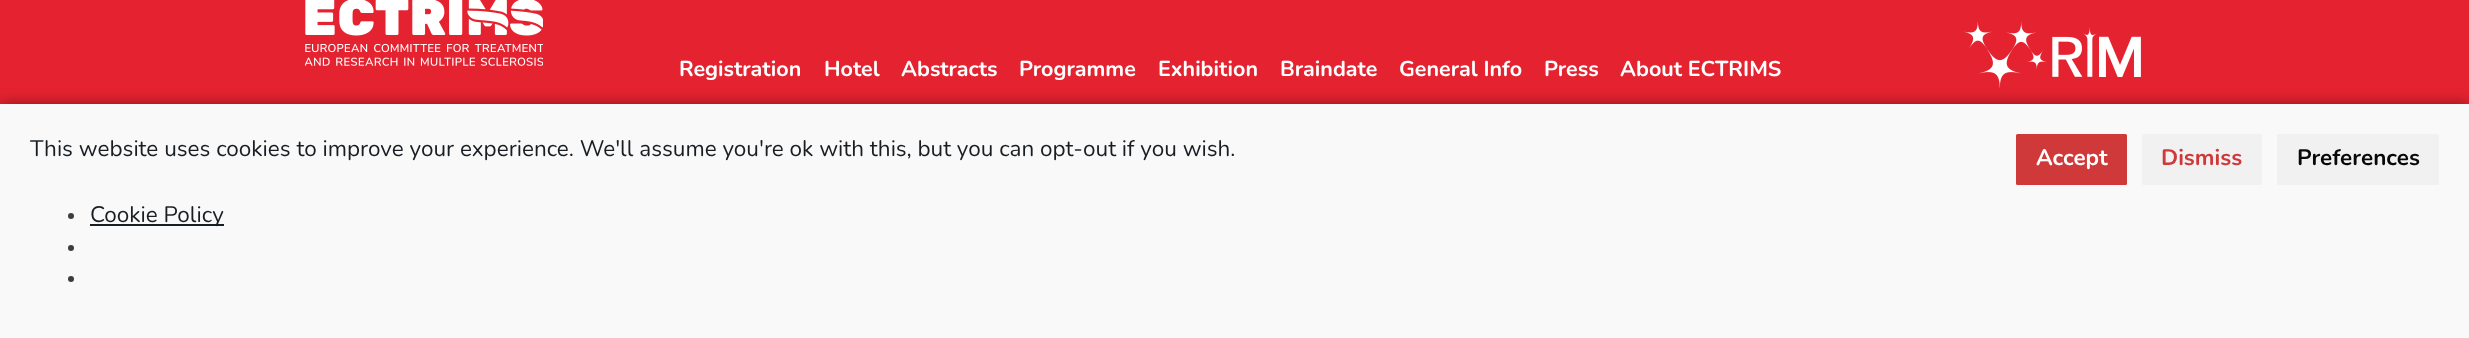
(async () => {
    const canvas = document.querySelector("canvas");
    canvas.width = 2469;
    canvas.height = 338;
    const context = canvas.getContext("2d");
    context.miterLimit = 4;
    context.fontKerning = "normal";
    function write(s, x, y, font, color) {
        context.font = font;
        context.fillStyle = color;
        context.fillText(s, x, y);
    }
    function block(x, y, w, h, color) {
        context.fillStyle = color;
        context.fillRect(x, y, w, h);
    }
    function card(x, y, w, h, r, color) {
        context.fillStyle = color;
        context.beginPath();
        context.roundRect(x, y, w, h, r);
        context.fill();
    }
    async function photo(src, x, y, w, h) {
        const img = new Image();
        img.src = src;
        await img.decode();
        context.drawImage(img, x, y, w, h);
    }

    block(0, 0, 2469, 338, "rgb(229, 35, 48)");
    await photo("media/1.png", 305, 0, 238, 66);
    write("Registration", 679, 76, "bold 21.5px Nunito", "rgb(255, 255, 255)");
    write("Hotel", 824, 76, "bold 21.5px Nunito", "rgb(255, 255, 255)");
    write("Abstracts", 901, 76, "bold 21.5px Nunito", "rgb(255, 255, 255)");
    write("Programme", 1019, 76, "bold 21.5px Nunito", "rgb(255, 255, 255)");
    write("Exhibition", 1158, 76, "bold 21.5px Nunito", "rgb(255, 255, 255)");
    write("Braindate", 1280, 76, "bold 21.5px Nunito", "rgb(255, 255, 255)");
    write("General Info", 1399, 76, "bold 21.5px Nunito", "rgb(255, 255, 255)");
    write("Press", 1544, 76, "bold 21.5px Nunito", "rgb(255, 255, 255)");
    write("About ECTRIMS", 1620, 76, "bold 21.5px Nunito", "rgb(255, 255, 255)");
    await photo("media/2.png", 1964, 21, 177, 68);
    context.fillStyle = "rgba(0, 0, 0, 0.4)";
    context.filter = "blur(7.5px)";
    context.beginPath();
    context.rect(0, 104, 2469, 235);
    context.fill();
    context.filter = "none";
    block(0, 104, 2469, 234, "rgb(249, 249, 249)");
    write("This website uses cookies to improve your experience. We'll assume you're ok with this, but you can opt-out if you wish.", 30, 156, "22.5px Nunito", "rgb(25, 30, 35)");
    context.fillStyle = "rgb(208, 57, 58)";
    context.beginPath();
    context.roundRect(2017, 135, 109, 49, 0.5);
    context.fill();
    context.strokeStyle = "rgb(208, 57, 58)";
    context.lineWidth = 2;
    context.stroke();
    write("Accept", 2036, 165, "bold 22.5px Nunito", "rgb(255, 255, 255)");
    card(2142, 134, 120, 51, 1.5, "rgb(241, 241, 241)");
    write("Dismiss", 2161, 165, "bold 22.5px Nunito", "rgb(208, 57, 58)");
    card(2277, 134, 162, 51, 1.5, "rgb(241, 241, 241)");
    write("Preferences", 2297, 165, "bold 22.5px Nunito", "rgb(7, 10, 7)");
    context.fillStyle = "rgb(60, 60, 60)";
    context.beginPath();
    context.arc(71, 216, 3, 0, Math.PI * 2);
    context.fill();
    block(90, 224, 134, 2, "rgb(25, 30, 35)");
    write("Cookie Policy", 90, 222, "22.5px Nunito", "rgb(25, 30, 35)");
    context.fillStyle = "rgb(60, 60, 60)";
    context.beginPath();
    context.arc(71, 248, 3, 0, Math.PI * 2);
    context.fill();
    context.beginPath();
    context.arc(71, 279, 3, 0, Math.PI * 2);
    context.fill();
})();
